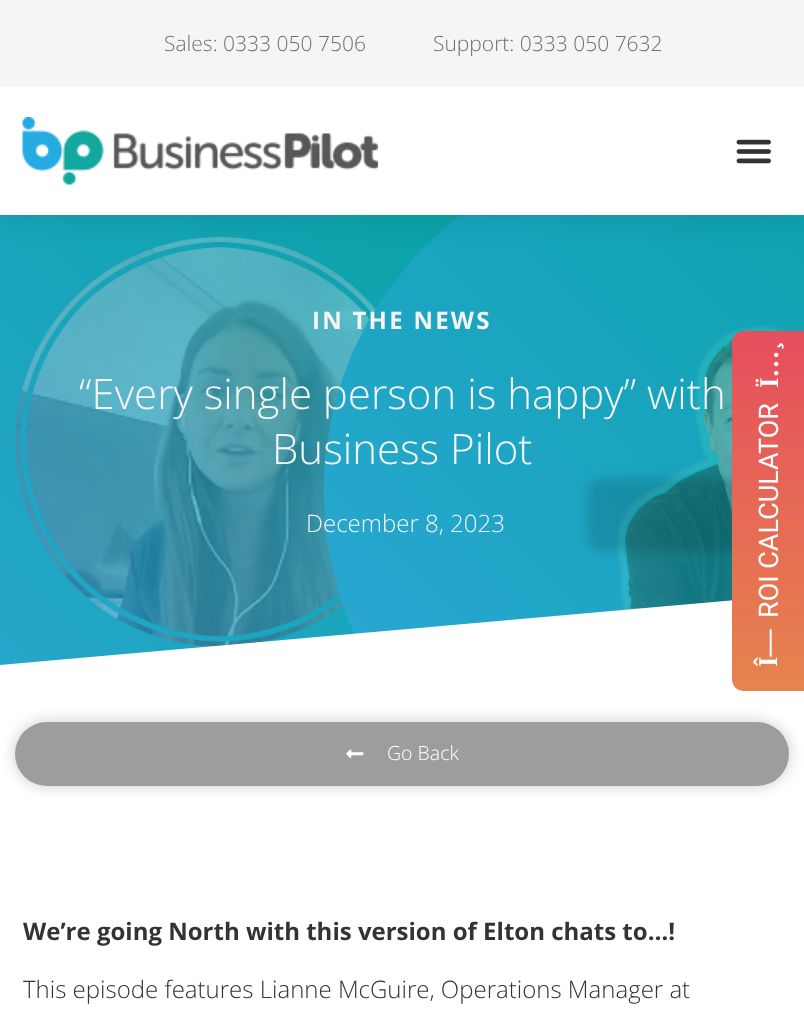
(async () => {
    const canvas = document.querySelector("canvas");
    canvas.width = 804;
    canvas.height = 1021;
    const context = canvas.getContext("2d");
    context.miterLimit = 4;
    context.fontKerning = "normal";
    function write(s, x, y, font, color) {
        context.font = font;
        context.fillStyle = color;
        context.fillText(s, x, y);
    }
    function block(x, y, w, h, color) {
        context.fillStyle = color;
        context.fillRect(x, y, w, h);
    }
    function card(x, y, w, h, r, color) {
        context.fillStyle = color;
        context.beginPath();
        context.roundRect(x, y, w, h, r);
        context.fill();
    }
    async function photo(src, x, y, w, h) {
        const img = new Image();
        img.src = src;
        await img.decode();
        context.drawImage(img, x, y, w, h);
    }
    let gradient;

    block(0, 0, 804, 1021, "rgb(255, 255, 255)");
    await photo("media/3.png", 0, 215, 804, 450);
    context.fillStyle = "rgba(0, 0, 0, 0.1)";
    context.filter = "blur(15px)";
    context.beginPath();
    context.rect(0, 0, 804, 215);
    context.fill();
    context.filter = "none";
    block(0, 0, 804, 87, "rgb(245, 245, 245)");
    write("Sales: 0333 050 7506", 164, 51, "300 21px Open Sans", "rgb(112, 111, 111)");
    write("Support: 0333 050 7632", 433, 51, "300 21px Open Sans", "rgb(112, 111, 111)");
    block(0, 87, 804, 128, "rgb(255, 255, 255)");
    await photo("media/1.png", 22, 117, 356, 68);
    await photo("media/2.png", 736, 139, 35, 25);
    context.letterSpacing = "2.25px";
    write("IN THE NEWS", 312, 329, "bold 24px Open Sans", "rgb(245, 245, 245)");
    context.letterSpacing = "0px";
    write("“Every single person is happy” with", 79, 409, "300 42px Open Sans", "rgb(245, 245, 245)");
    write("Business Pilot", 272, 464, "300 42px Open Sans", "rgb(245, 245, 245)");
    write("December 8, 2023", 306, 532, "300 24px Open Sans", "rgb(245, 245, 245)");
    context.fillStyle = "rgb(255, 255, 255)";
    context.beginPath();
    context.moveTo(-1, 665);
    context.lineTo(-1, 669);
    context.lineTo(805, 669);
    context.lineTo(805, 594);
    context.closePath();
    context.fill();
    context.fillStyle = "rgba(0, 0, 0, 0.2)";
    context.filter = "blur(7.5px)";
    context.beginPath();
    context.roundRect(15, 722, 774, 64, 32);
    context.fill();
    context.filter = "none";
    card(15, 722, 774, 64, 32, "rgb(157, 157, 156)");
    await photo("media/4.png", 346, 749, 18, 9);
    write("Go Back", 387, 760, "300 19.5px Open Sans", "rgb(255, 255, 255)");
    write("We’re going North with this version of Elton chats to…!", 23, 940, "bold 24px Open Sans", "rgb(51, 51, 51)");
    write("This episode features Lianne McGuire, Operations Manager at", 23, 998, "300 24px Open Sans", "rgb(51, 51, 51)");
    context.fillStyle = "rgba(0, 0, 0, 0.06)";
    context.filter = "blur(9px)";
    context.beginPath();
    context.roundRect(588, 479, 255, 72, 12);
    context.fill();
    context.filter = "none";
    context.fillStyle = "rgba(0, 0, 0, 0.08)";
    context.filter = "blur(3px)";
    context.beginPath();
    context.roundRect(588, 479, 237, 72, 12);
    context.fill();
    context.filter = "none";
    gradient = context.createLinearGradient(768, 691, 768, 331);
    gradient.addColorStop(0, "rgb(230, 132, 78)");
    gradient.addColorStop(1, "rgb(230, 78, 93)");
    context.fillStyle = gradient;
    context.beginPath();
    context.moveTo(732, 679);
    context.lineTo(732, 343);
    context.bezierCurveTo(732, 336, 737, 331, 744, 331);
    context.lineTo(804, 331);
    context.lineTo(804, 691);
    context.lineTo(744, 691);
    context.bezierCurveTo(737, 691, 732, 686, 732, 679);
    context.closePath();
    context.fill();
    context.font = "bold 27px Liberation Serif";
    context.fillStyle = "rgb(255, 255, 255)";
    context.save();
    context.translate(778, 388);
    context.rotate(-90 * Math.PI / 180);
    context.fillText("Ï…¸", 0, 0);
    context.restore();
    context.font = "27px Roboto";
    context.save();
    context.translate(778, 618);
    context.rotate(-90 * Math.PI / 180);
    context.fillText("ROI CALCULATOR", 0, 0);
    context.restore();
    context.font = "bold 27px Liberation Serif";
    context.save();
    context.translate(777, 667);
    context.rotate(-90 * Math.PI / 180);
    context.fillText("Î—", 0, 0);
    context.restore();
})();
